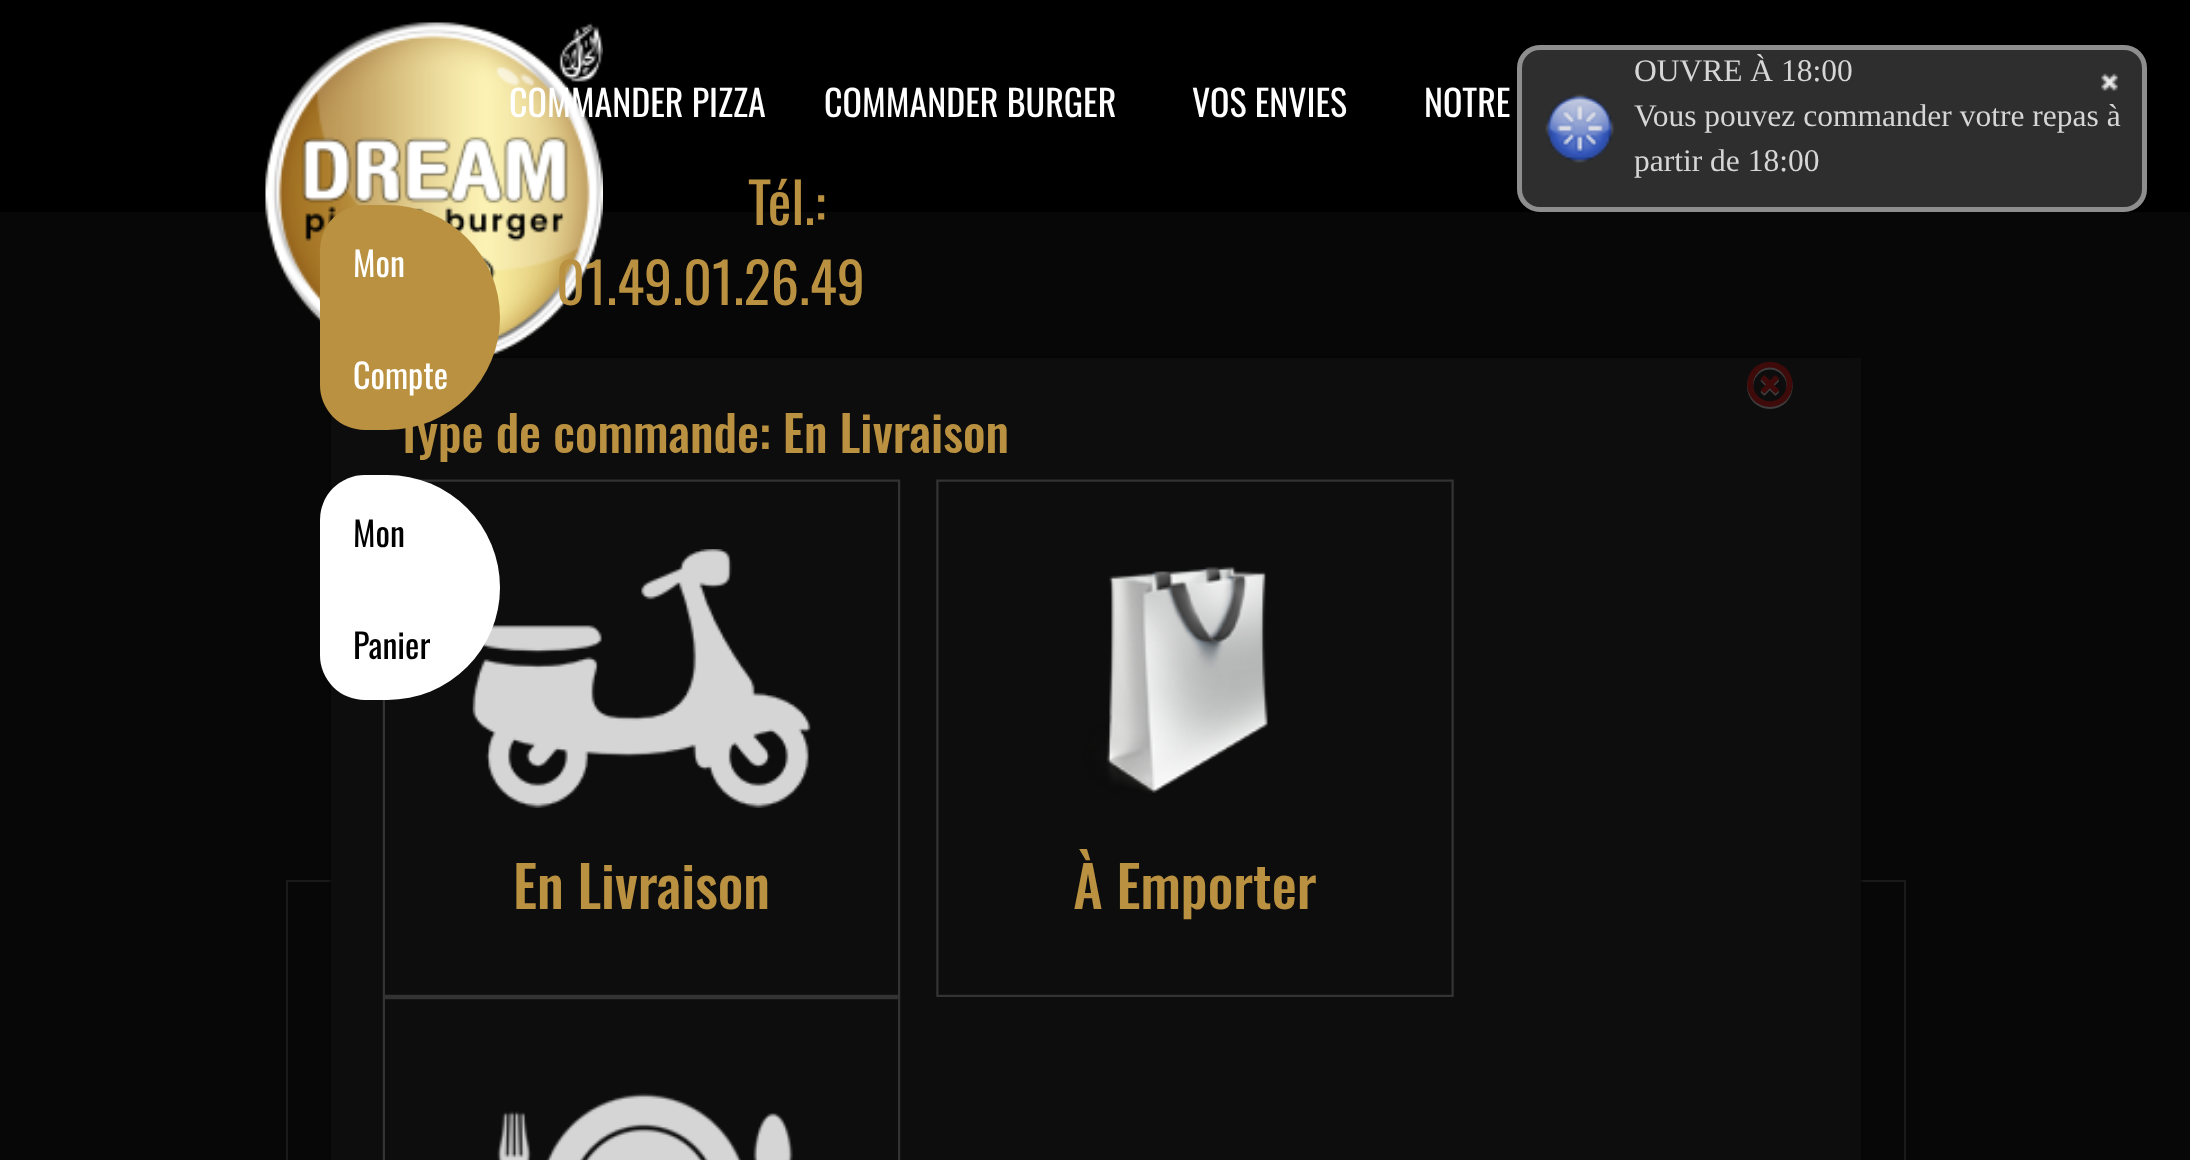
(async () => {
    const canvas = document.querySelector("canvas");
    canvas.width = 2190;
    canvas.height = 1160;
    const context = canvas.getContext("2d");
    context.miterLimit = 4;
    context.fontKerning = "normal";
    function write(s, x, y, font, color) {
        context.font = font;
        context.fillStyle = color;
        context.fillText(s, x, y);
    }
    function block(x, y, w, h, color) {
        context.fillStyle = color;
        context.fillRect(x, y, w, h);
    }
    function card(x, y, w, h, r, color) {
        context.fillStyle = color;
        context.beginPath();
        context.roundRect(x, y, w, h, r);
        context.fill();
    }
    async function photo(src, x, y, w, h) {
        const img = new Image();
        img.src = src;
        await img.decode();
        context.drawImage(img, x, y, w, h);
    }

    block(0, 0, 2190, 1160, "rgb(7, 7, 7)");
    block(0, 0, 2190, 212, "rgb(0, 0, 0)");
    await photo("media/1.png", 265, 22, 338, 334);
    write("COMMANDER PIZZA", 509, 117, "36px Oswald", "rgb(255, 255, 255)");
    write("COMMANDER BURGER", 824, 117, "36px Oswald", "rgb(255, 255, 255)");
    write("VOS ENVIES", 1192, 117, "36px Oswald", "rgb(255, 255, 255)");
    write("NOTRE", 1424, 117, "36px Oswald", "rgb(255, 255, 255)");
    context.strokeStyle = "rgb(26, 26, 26)";
    context.lineWidth = 2;
    context.strokeRect(287, 881, 1618, 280);
    context.beginPath();
    context.roundRect(330, 357, 1532, 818, 13);
    context.strokeStyle = "rgba(0, 0, 0, 0.2)";
    context.stroke();
    await photo("media/4.png", 331, 358, 1530, 802);
    context.fillStyle = "rgb(185, 145, 64)";
    context.beginPath();
    context.roundRect(320, 205, 180, 225, [44.8, 112.5, 112.5, 44.8]);
    context.fill();
    write("Mon", 353, 277, "34px Oswald", "rgb(255, 255, 255)");
    write("Compte", 353, 389, "34px Oswald", "rgb(255, 255, 255)");
    context.beginPath();
    context.roundRect(320, 475, 180, 225, [44.8, 112.5, 112.5, 44.8]);
    context.fill();
    write("Mon", 353, 547, "34px Oswald", "rgb(0, 0, 0)");
    write("Panier", 353, 659, "34px Oswald", "rgb(0, 0, 0)");
    write("Tél.:", 748, 225, "56.25px Oswald", "rgb(185, 145, 64)");
    write("01.49.01.26.49", 556, 305, "56.25px Oswald", "rgb(185, 145, 64)");
    card(1517, 45, 630, 167, 23, "rgba(51, 51, 51, 0.9)");
    context.beginPath();
    context.roundRect(1519.5, 47.5, 625, 162, 20.5);
    context.strokeStyle = "rgba(153, 153, 153, 0.9)";
    context.lineWidth = 5;
    context.stroke();
    write("OUVRE À 18:00", 1634, 81, "31.5px Liberation Serif", "rgb(214, 214, 214)");
    write("Vous pouvez commander votre repas à", 1634, 126, "31.5px Liberation Serif", "rgb(214, 214, 214)");
    write("partir de 18:00", 1634, 171, "31.5px Liberation Serif", "rgb(214, 214, 214)");
    await photo("media/2.png", 2101, 73, 17, 18);
    await photo("media/3.png", 1545, 94, 69, 69);
})();
